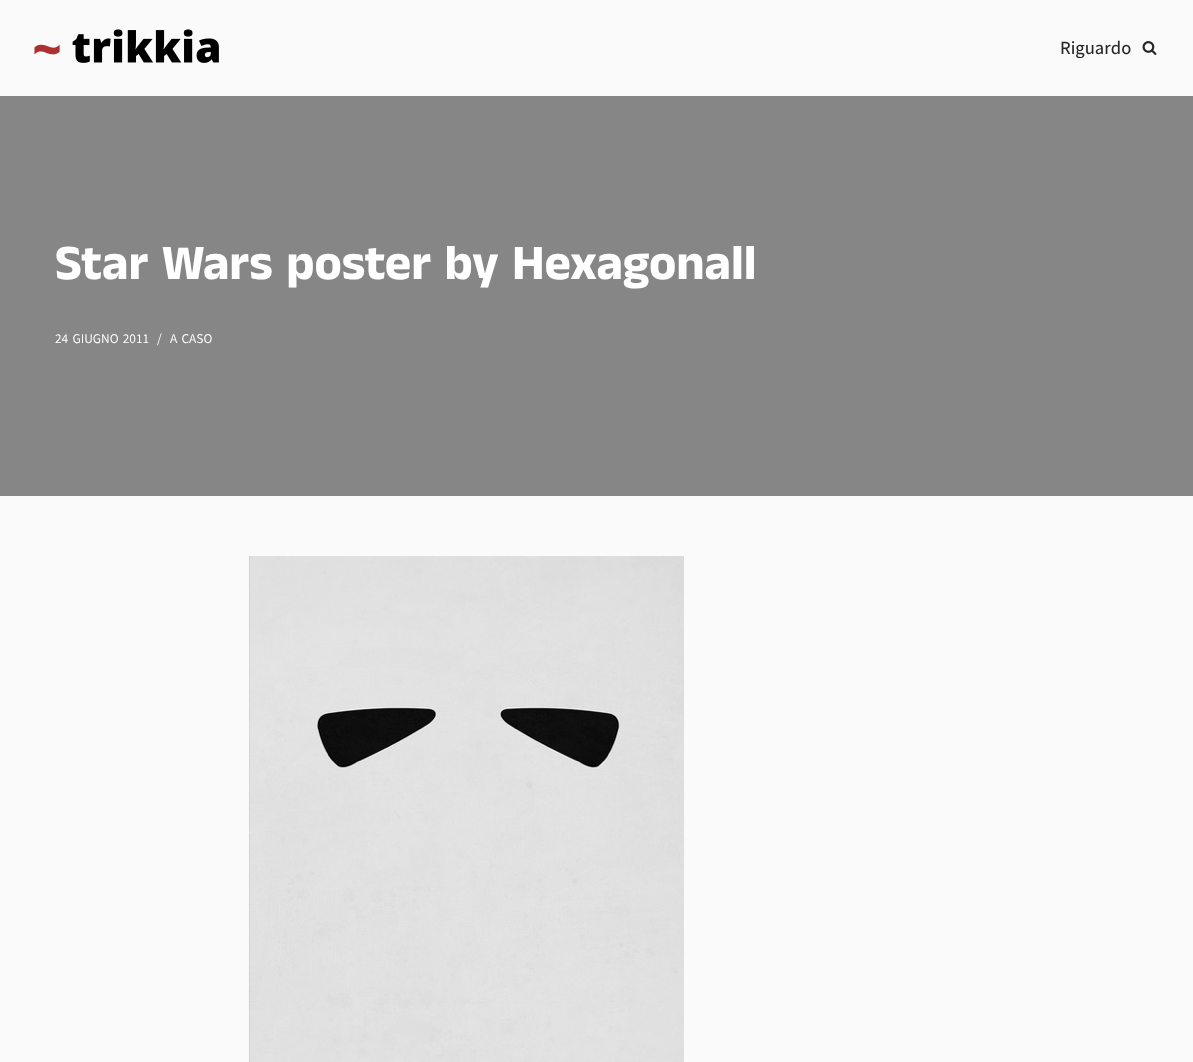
(async () => {
    const canvas = document.querySelector("canvas");
    canvas.width = 1193;
    canvas.height = 1062;
    const context = canvas.getContext("2d");
    context.miterLimit = 4;
    context.fontKerning = "normal";
    function write(s, x, y, font, color) {
        context.font = font;
        context.fillStyle = color;
        context.fillText(s, x, y);
    }
    function block(x, y, w, h, color) {
        context.fillStyle = color;
        context.fillRect(x, y, w, h);
    }
    async function photo(src, x, y, w, h) {
        const img = new Image();
        img.src = src;
        await img.decode();
        context.drawImage(img, x, y, w, h);
    }

    block(0, 0, 1193, 1062, "rgb(250, 250, 250)");
    block(0, 96, 1193, 400, "rgb(134, 134, 134)");
    await photo("media/1.png", 34, 29, 185, 34);
    write("Riguardo", 1060, 54, "500 18px Akatab", "rgb(39, 38, 38)");
    await photo("media/2.png", 1142, 41, 15, 14);
    write("Star Wars poster by Hexagonall", 55, 279, "bold 50px Anek Tamil", "rgb(255, 255, 255)");
    write("24 GIUGNO 2011", 55, 343, "13px Akatab", "rgb(255, 255, 255)");
    write("/", 157, 343, "13px Akatab", "rgb(255, 255, 255)");
    write("A CASO", 170, 343, "13px Akatab", "rgb(255, 255, 255)");
    await photo("media/3.png", 249, 556, 435, 506);
})();
